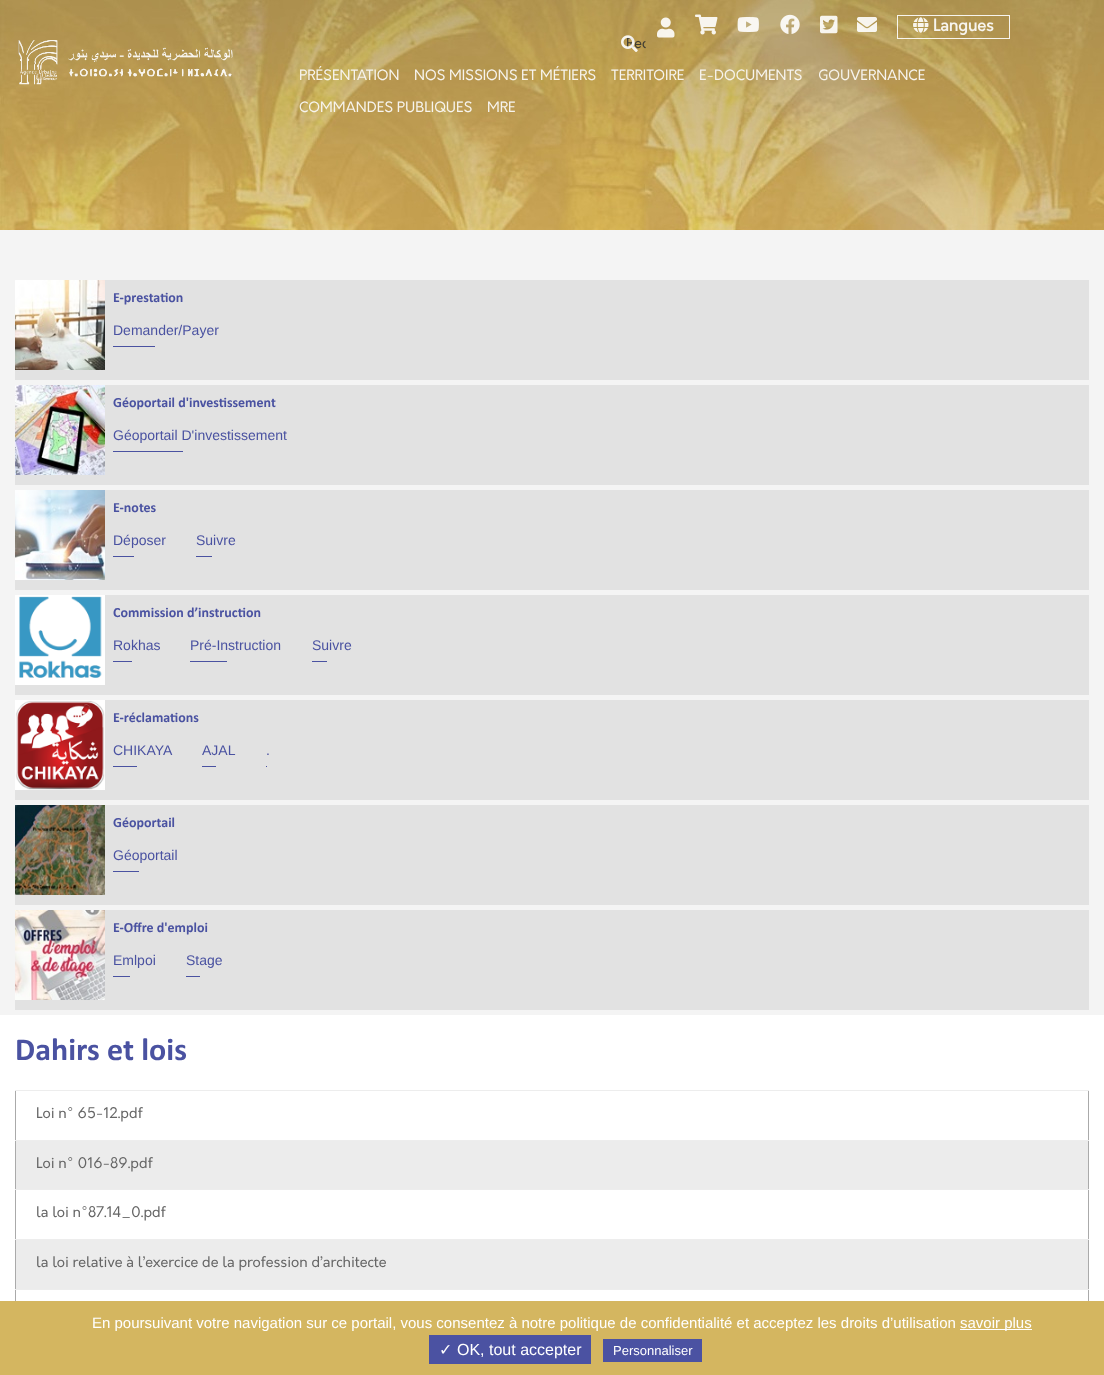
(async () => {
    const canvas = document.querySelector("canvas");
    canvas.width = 1104;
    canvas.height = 1375;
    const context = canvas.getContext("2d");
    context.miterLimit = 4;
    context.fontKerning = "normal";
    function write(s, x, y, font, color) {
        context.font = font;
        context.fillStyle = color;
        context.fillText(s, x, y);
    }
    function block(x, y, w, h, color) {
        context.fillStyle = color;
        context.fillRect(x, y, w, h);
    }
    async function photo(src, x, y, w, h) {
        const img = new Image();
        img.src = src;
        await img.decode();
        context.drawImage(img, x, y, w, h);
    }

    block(0, 0, 1104, 1375, "rgb(244, 244, 244)");
    await photo("media/1.png", 0, 0, 1104, 230);
    await photo("media/2.png", 18, 40, 215, 45);
    await photo("media/3.png", 657, 17, 18, 21);
    await photo("media/4.png", 695, 14, 23, 21);
    await photo("media/5.png", 737, 17, 22, 15);
    await photo("media/6.png", 780, 14, 20, 20);
    await photo("media/7.png", 820, 15, 18, 19);
    await photo("media/8.png", 857, 17, 20, 15);
    context.strokeStyle = "rgba(255, 255, 255, 0.9)";
    context.strokeRect(897.5, 15.5, 112, 23);
    await photo("media/9.png", 913, 17, 16, 16);
    write("Langues", 933, 31, "bold 16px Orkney", "rgb(247, 244, 238)");
    context.save();
    context.beginPath();
    context.roundRect(606, 34, 40, 22, 11);
    context.clip();
    write("Rec", 626, 48, "14px Orkney", "rgb(62, 59, 51)");
    context.restore();
    await photo("media/10.png", 621, 35, 17, 17);
    write("PRÉSENTATION", 299, 80, "14px Orkney", "rgb(247, 244, 238)");
    write("NOS MISSIONS ET MÉTIERS", 414, 80, "14px Orkney", "rgb(247, 244, 238)");
    write("TERRITOIRE", 611, 80, "14px Orkney", "rgb(247, 244, 238)");
    write("E-DOCUMENTS", 699, 80, "14px Orkney", "rgb(247, 244, 238)");
    write("GOUVERNANCE", 818, 80, "14px Orkney", "rgb(247, 244, 238)");
    write("COMMANDES PUBLIQUES", 299, 112, "14px Orkney", "rgb(247, 244, 238)");
    write("MRE", 487, 112, "14px Orkney", "rgb(247, 244, 238)");
    block(15, 280, 1074, 100, "rgb(226, 226, 226)");
    await photo("media/11.png", 15, 280, 90, 90);
    write("E-prestation", 113, 302, "bold 14px Calibri", "rgb(74, 82, 161)");
    write("Demander/Payer", 113, 335, "14px Liberation Sans", "rgb(74, 82, 161)");
    block(113, 346, 42, 1, "rgb(74, 82, 161)");
    block(15, 385, 1074, 100, "rgb(226, 226, 226)");
    await photo("media/12.png", 15, 385, 90, 90);
    write("Géoportail d'investissement", 113, 407, "bold 14px Calibri", "rgb(74, 82, 161)");
    write("Géoportail D'investissement", 113, 440, "14px Liberation Sans", "rgb(74, 82, 161)");
    block(113, 451, 70, 1, "rgb(74, 82, 161)");
    block(15, 490, 1074, 100, "rgb(226, 226, 226)");
    await photo("media/13.png", 15, 490, 90, 90);
    write("E-notes", 113, 512, "bold 14px Calibri", "rgb(74, 82, 161)");
    write("Déposer", 113, 545, "14px Liberation Sans", "rgb(74, 82, 161)");
    block(113, 556, 21, 1, "rgb(74, 82, 161)");
    write("Suivre", 196, 545, "14px Liberation Sans", "rgb(74, 82, 161)");
    block(196, 556, 16, 1, "rgb(74, 82, 161)");
    block(15, 595, 1074, 100, "rgb(226, 226, 226)");
    await photo("media/14.png", 15, 595, 90, 90);
    write("Commission d’instruction", 113, 617, "bold 14px Calibri", "rgb(74, 82, 161)");
    write("Rokhas", 113, 650, "14px Liberation Sans", "rgb(74, 82, 161)");
    block(113, 661, 19, 1, "rgb(74, 82, 161)");
    write("Pré-Instruction", 190, 650, "14px Liberation Sans", "rgb(74, 82, 161)");
    block(190, 661, 37, 1, "rgb(74, 82, 161)");
    write("Suivre", 312, 650, "14px Liberation Sans", "rgb(74, 82, 161)");
    block(312, 661, 15, 1, "rgb(74, 82, 161)");
    block(15, 700, 1074, 100, "rgb(226, 226, 226)");
    await photo("media/15.png", 15, 700, 90, 90);
    write("E-réclamations", 113, 722, "bold 14px Calibri", "rgb(74, 82, 161)");
    write("CHIKAYA", 113, 755, "14px Liberation Sans", "rgb(74, 82, 161)");
    block(113, 766, 24, 1, "rgb(74, 82, 161)");
    write("AJAL", 202, 755, "14px Liberation Sans", "rgb(74, 82, 161)");
    block(202, 766, 14, 1, "rgb(74, 82, 161)");
    write(".", 266, 755, "14px Liberation Sans", "rgb(74, 82, 161)");
    block(266, 766, 1, 1, "rgb(74, 82, 161)");
    block(15, 805, 1074, 100, "rgb(226, 226, 226)");
    await photo("media/16.png", 15, 805, 90, 90);
    write("Géoportail", 113, 827, "bold 14px Calibri", "rgb(74, 82, 161)");
    write("Géoportail", 113, 860, "14px Liberation Sans", "rgb(74, 82, 161)");
    block(113, 871, 26, 1, "rgb(74, 82, 161)");
    block(15, 910, 1074, 100, "rgb(226, 226, 226)");
    await photo("media/17.png", 15, 910, 90, 90);
    write("E-Offre d'emploi", 113, 932, "bold 14px Calibri", "rgb(74, 82, 161)");
    write("Emlpoi", 113, 965, "14px Liberation Sans", "rgb(74, 82, 161)");
    block(113, 976, 17, 1, "rgb(74, 82, 161)");
    write("Stage", 186, 965, "14px Liberation Sans", "rgb(74, 82, 161)");
    block(186, 976, 14, 1, "rgb(74, 82, 161)");
    block(0, 1015, 1104, 286, "rgb(255, 255, 255)");
    write("Dahirs et lois", 15, 1060, "bold 32px Calibri", "rgb(74, 82, 161)");
    block(1088, 1090, 1, 211, "rgb(170, 170, 170)");
    block(15, 1090, 1, 211, "rgb(170, 170, 170)");
    block(15, 1289, 1074, 1, "rgb(237, 237, 237)");
    block(15, 1090, 1074, 1, "rgb(237, 237, 237)");
    write("Loi n° 65-12.pdf", 36, 1118, "14.4px Orkney", "rgb(102, 102, 102)");
    block(16, 1141, 1072, 48, "rgb(236, 236, 236)");
    block(15, 1140, 1074, 1, "rgb(237, 237, 237)");
    write("Loi n° 016-89.pdf", 36, 1168, "14.4px Orkney", "rgb(102, 102, 102)");
    block(15, 1189, 1074, 1, "rgb(237, 237, 237)");
    write("la loi n°87.14_0.pdf", 36, 1217, "14.4px Orkney", "rgb(102, 102, 102)");
    block(16, 1240, 1072, 49, "rgb(236, 236, 236)");
    block(15, 1239, 1074, 1, "rgb(237, 237, 237)");
    write("la loi relative à l’exercice de la profession d’architecte", 36, 1267, "14.4px Orkney", "rgb(102, 102, 102)");
    block(0, 1301, 1104, 74, "rgb(212, 182, 96)");
    write("En poursuivant votre navigation sur ce portail, vous consentez à notre politique de confidentialité et acceptez les droits d’utilisation", 92, 1328, "15px Liberation Sans", "rgb(255, 255, 255)");
    block(960, 1329, 72, 1, "rgb(255, 255, 255)");
    write("savoir plus", 960, 1328, "15px Liberation Sans", "rgb(255, 255, 255)");
    block(429, 1335, 162, 29, "rgb(75, 82, 162)");
    write("✓", 439, 1355, "16px DejaVu Sans", "rgb(255, 255, 255)");
    write("OK, tout accepter", 457, 1355, "16px Liberation Sans", "rgb(255, 255, 255)");
    block(603, 1339, 99, 23, "rgb(75, 82, 162)");
    write("Personnaliser", 613, 1355, "13px Liberation Sans", "rgb(255, 255, 255)");
})();
